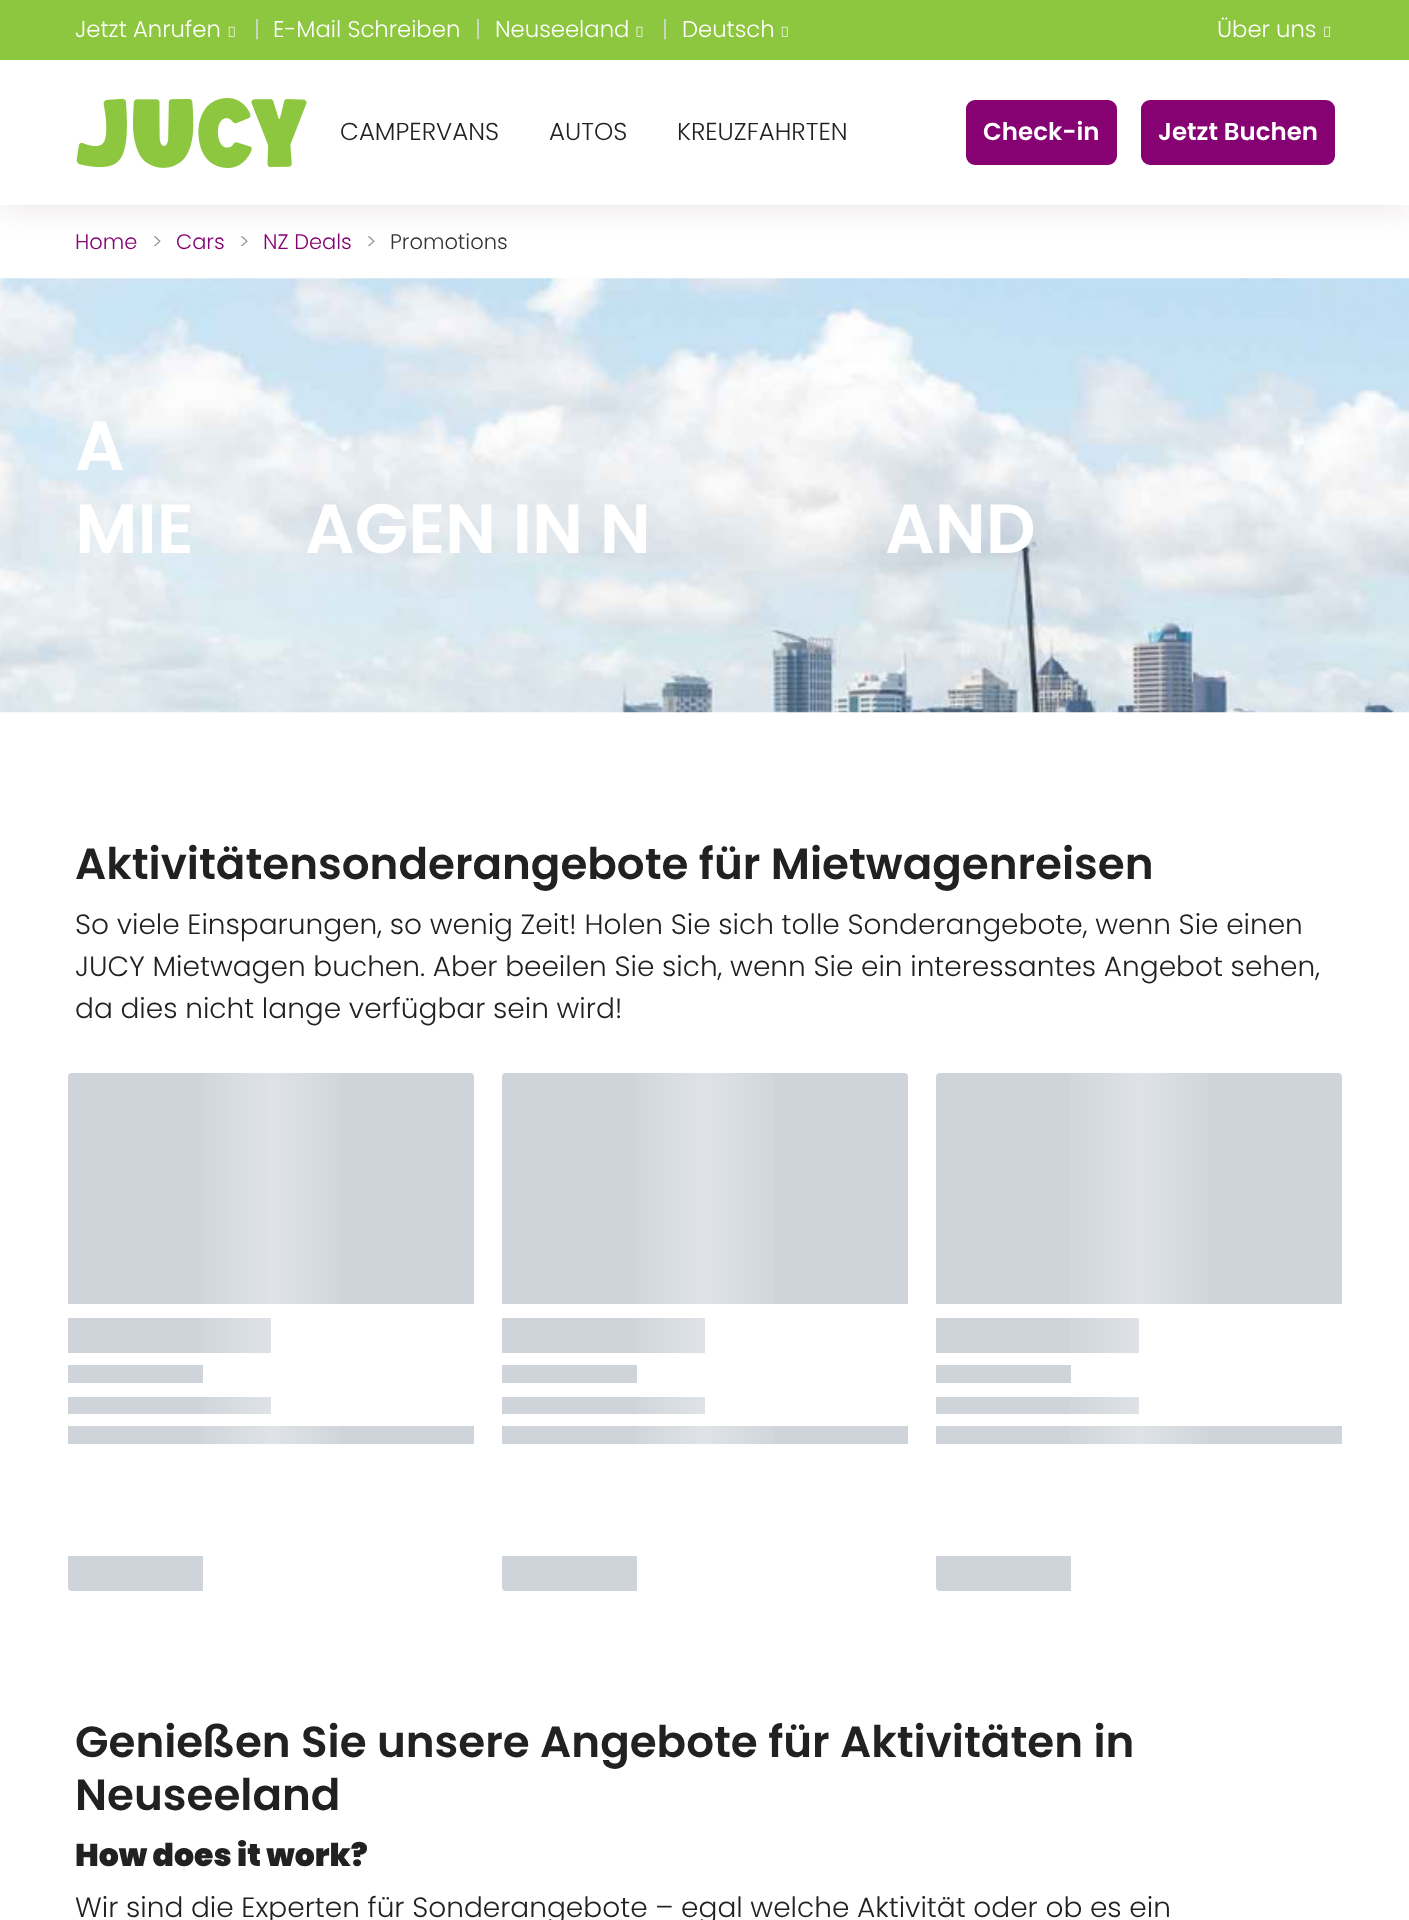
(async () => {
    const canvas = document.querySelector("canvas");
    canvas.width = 1409;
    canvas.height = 1920;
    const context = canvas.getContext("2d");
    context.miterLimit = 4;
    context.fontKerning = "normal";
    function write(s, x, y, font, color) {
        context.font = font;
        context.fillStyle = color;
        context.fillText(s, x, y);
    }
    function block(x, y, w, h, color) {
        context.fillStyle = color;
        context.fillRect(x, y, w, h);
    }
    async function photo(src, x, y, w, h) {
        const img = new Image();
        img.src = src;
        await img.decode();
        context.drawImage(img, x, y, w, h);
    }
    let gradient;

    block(0, 0, 1409, 1920, "rgb(255, 255, 255)");
    context.fillStyle = "rgba(60, 4, 52, 0.1)";
    context.filter = "blur(16px)";
    context.beginPath();
    context.rect(0, 4, 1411, 204);
    context.fill();
    context.filter = "none";
    block(0, 60, 1409, 145, "rgb(255, 255, 255)");
    block(0, 0, 1409, 60, "rgb(141, 198, 63)");
    write("Jetzt Anrufen", 75, 37, "300 22.75px Poppins", "rgb(255, 255, 255)");
    await photo("media/1.png", 228, 26, 7, 11);
    write("|", 254, 37, "300 22.75px Poppins", "rgb(209, 219, 223)");
    write("E-Mail Schreiben", 273, 37, "300 22.75px Poppins", "rgb(255, 255, 255)");
    write("|", 475, 37, "300 22.75px Poppins", "rgb(209, 219, 223)");
    write("Neuseeland", 495, 37, "300 22.75px Poppins", "rgb(255, 255, 255)");
    await photo("media/2.png", 636, 26, 7, 11);
    write("|", 662, 37, "300 22.75px Poppins", "rgb(209, 219, 223)");
    write("Deutsch", 682, 37, "300 22.75px Poppins", "rgb(255, 255, 255)");
    await photo("media/1.png", 781, 26, 7, 11);
    write("Über uns", 1217, 37, "300 22.75px Poppins", "rgb(255, 255, 255)");
    await photo("media/3.png", 1324, 26, 7, 11);
    await photo("media/4.png", 76, 98, 231, 70);
    write("CAMPERVANS", 340, 140, "300 24.5px Poppins", "rgb(33, 33, 33)");
    write("AUTOS", 549, 140, "300 24.5px Poppins", "rgb(33, 33, 33)");
    write("KREUZFAHRTEN", 677, 140, "300 24.5px Poppins", "rgb(33, 33, 33)");
    context.fillStyle = "rgb(134, 1, 113)";
    context.beginPath();
    context.roundRect(968, 102, 147, 61, 7);
    context.fill();
    context.strokeStyle = "rgb(134, 1, 113)";
    context.lineWidth = 4;
    context.stroke();
    write("Check-in", 983, 140, "600 24.5px Poppins", "rgb(255, 255, 255)");
    context.fillStyle = "rgb(134, 1, 113)";
    context.beginPath();
    context.roundRect(1143, 102, 190, 61, 7);
    context.fill();
    context.stroke();
    write("Jetzt Buchen", 1158, 140, "600 24.5px Poppins", "rgb(255, 255, 255)");
    write("Home", 75, 249, "300 21px Poppins", "rgb(134, 1, 113)");
    write(">", 152, 249, "300 21px Poppins", "rgb(140, 152, 157)");
    write("Cars", 176, 249, "300 21px Poppins", "rgb(134, 1, 113)");
    write(">", 239, 249, "300 21px Poppins", "rgb(140, 152, 157)");
    write("NZ Deals", 263, 249, "300 21px Poppins", "rgb(134, 1, 113)");
    write(">", 366, 249, "300 21px Poppins", "rgb(140, 152, 157)");
    write("Promotions", 390, 249, "300 21px Poppins", "rgb(51, 51, 51)");
    await photo("media/5.png", 0, 278, 1409, 435);
    write("A", 75, 470, "600 69.5px Poppins", "rgb(255, 255, 255)");
    write("MIE", 75, 553, "600 69.5px Poppins", "rgb(255, 255, 255)");
    write("AGEN IN N", 305, 553, "600 69.5px Poppins", "rgb(255, 255, 255)");
    write("AND", 885, 553, "600 69.5px Poppins", "rgb(255, 255, 255)");
    write("Aktivitätensonderangebote für Mietwagenreisen", 75, 879, "600 43.6px Poppins", "rgb(33, 33, 33)");
    write("So viele Einsparungen, so wenig Zeit! Holen Sie sich tolle Sonderangebote, wenn Sie einen", 75, 934, "300 28px Poppins", "rgb(33, 33, 33)");
    write("JUCY Mietwagen buchen. Aber beeilen Sie sich, wenn Sie ein interessantes Angebot sehen,", 75, 976, "300 28px Poppins", "rgb(33, 33, 33)");
    write("da dies nicht lange verfügbar sein wird!", 75, 1018, "300 28px Poppins", "rgb(33, 33, 33)");
    context.fillStyle = "rgb(206, 212, 218)";
    context.beginPath();
    context.roundRect(68, 1073, 406, 231, [4, 4, 0, 0]);
    context.fill();
    block(68, 1318, 203, 35, "rgb(206, 212, 218)");
    block(68, 1365, 135, 18, "rgb(206, 212, 218)");
    block(68, 1397, 203, 17, "rgb(206, 212, 218)");
    block(68, 1426, 406, 18, "rgb(206, 212, 218)");
    context.beginPath();
    context.roundRect(68, 1556, 135, 35, [0, 0, 0, 4]);
    context.fill();
    gradient = context.createLinearGradient(-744, 1332, 1286, 1332);
    gradient.addColorStop(0.46, "rgba(255, 255, 255, 0)");
    gradient.addColorStop(0.5, "rgba(255, 255, 255, 0.35)");
    gradient.addColorStop(0.54, "rgba(255, 255, 255, 0)");
    context.fillStyle = gradient;
    context.fillRect(202, 1073, 138, 518);
    context.fillStyle = "rgb(206, 212, 218)";
    context.beginPath();
    context.roundRect(502, 1073, 406, 231, [4, 4, 0, 0]);
    context.fill();
    block(502, 1318, 203, 35, "rgb(206, 212, 218)");
    block(502, 1365, 135, 18, "rgb(206, 212, 218)");
    block(502, 1397, 203, 17, "rgb(206, 212, 218)");
    block(502, 1426, 406, 18, "rgb(206, 212, 218)");
    context.beginPath();
    context.roundRect(502, 1556, 135, 35, [0, 0, 0, 4]);
    context.fill();
    gradient = context.createLinearGradient(-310, 1332, 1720, 1332);
    gradient.addColorStop(0.46, "rgba(255, 255, 255, 0)");
    gradient.addColorStop(0.5, "rgba(255, 255, 255, 0.35)");
    gradient.addColorStop(0.54, "rgba(255, 255, 255, 0)");
    context.fillStyle = gradient;
    context.fillRect(636, 1073, 138, 518);
    context.fillStyle = "rgb(206, 212, 218)";
    context.beginPath();
    context.roundRect(936, 1073, 406, 231, [4, 4, 0, 0]);
    context.fill();
    block(936, 1318, 203, 35, "rgb(206, 212, 218)");
    block(936, 1365, 135, 18, "rgb(206, 212, 218)");
    block(936, 1397, 203, 17, "rgb(206, 212, 218)");
    block(936, 1426, 406, 18, "rgb(206, 212, 218)");
    context.beginPath();
    context.roundRect(936, 1556, 135, 35, [0, 0, 0, 4]);
    context.fill();
    gradient = context.createLinearGradient(124, 1332, 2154, 1332);
    gradient.addColorStop(0.46, "rgba(255, 255, 255, 0)");
    gradient.addColorStop(0.5, "rgba(255, 255, 255, 0.35)");
    gradient.addColorStop(0.54, "rgba(255, 255, 255, 0)");
    context.fillStyle = gradient;
    context.fillRect(1070, 1073, 138, 518);
    write("Genießen Sie unsere Angebote für Aktivitäten in", 75, 1757, "600 43.6px Poppins", "rgb(33, 33, 33)");
    write("Neuseeland", 75, 1810, "600 43.6px Poppins", "rgb(33, 33, 33)");
    write("How does it work?", 75, 1866, "900 31.5px Poppins", "rgb(33, 33, 33)");
    write("Wir sind die Experten für Sonderangebote – egal welche Aktivität oder ob es ein", 75, 1917, "300 28px Poppins", "rgb(33, 33, 33)");
})();
